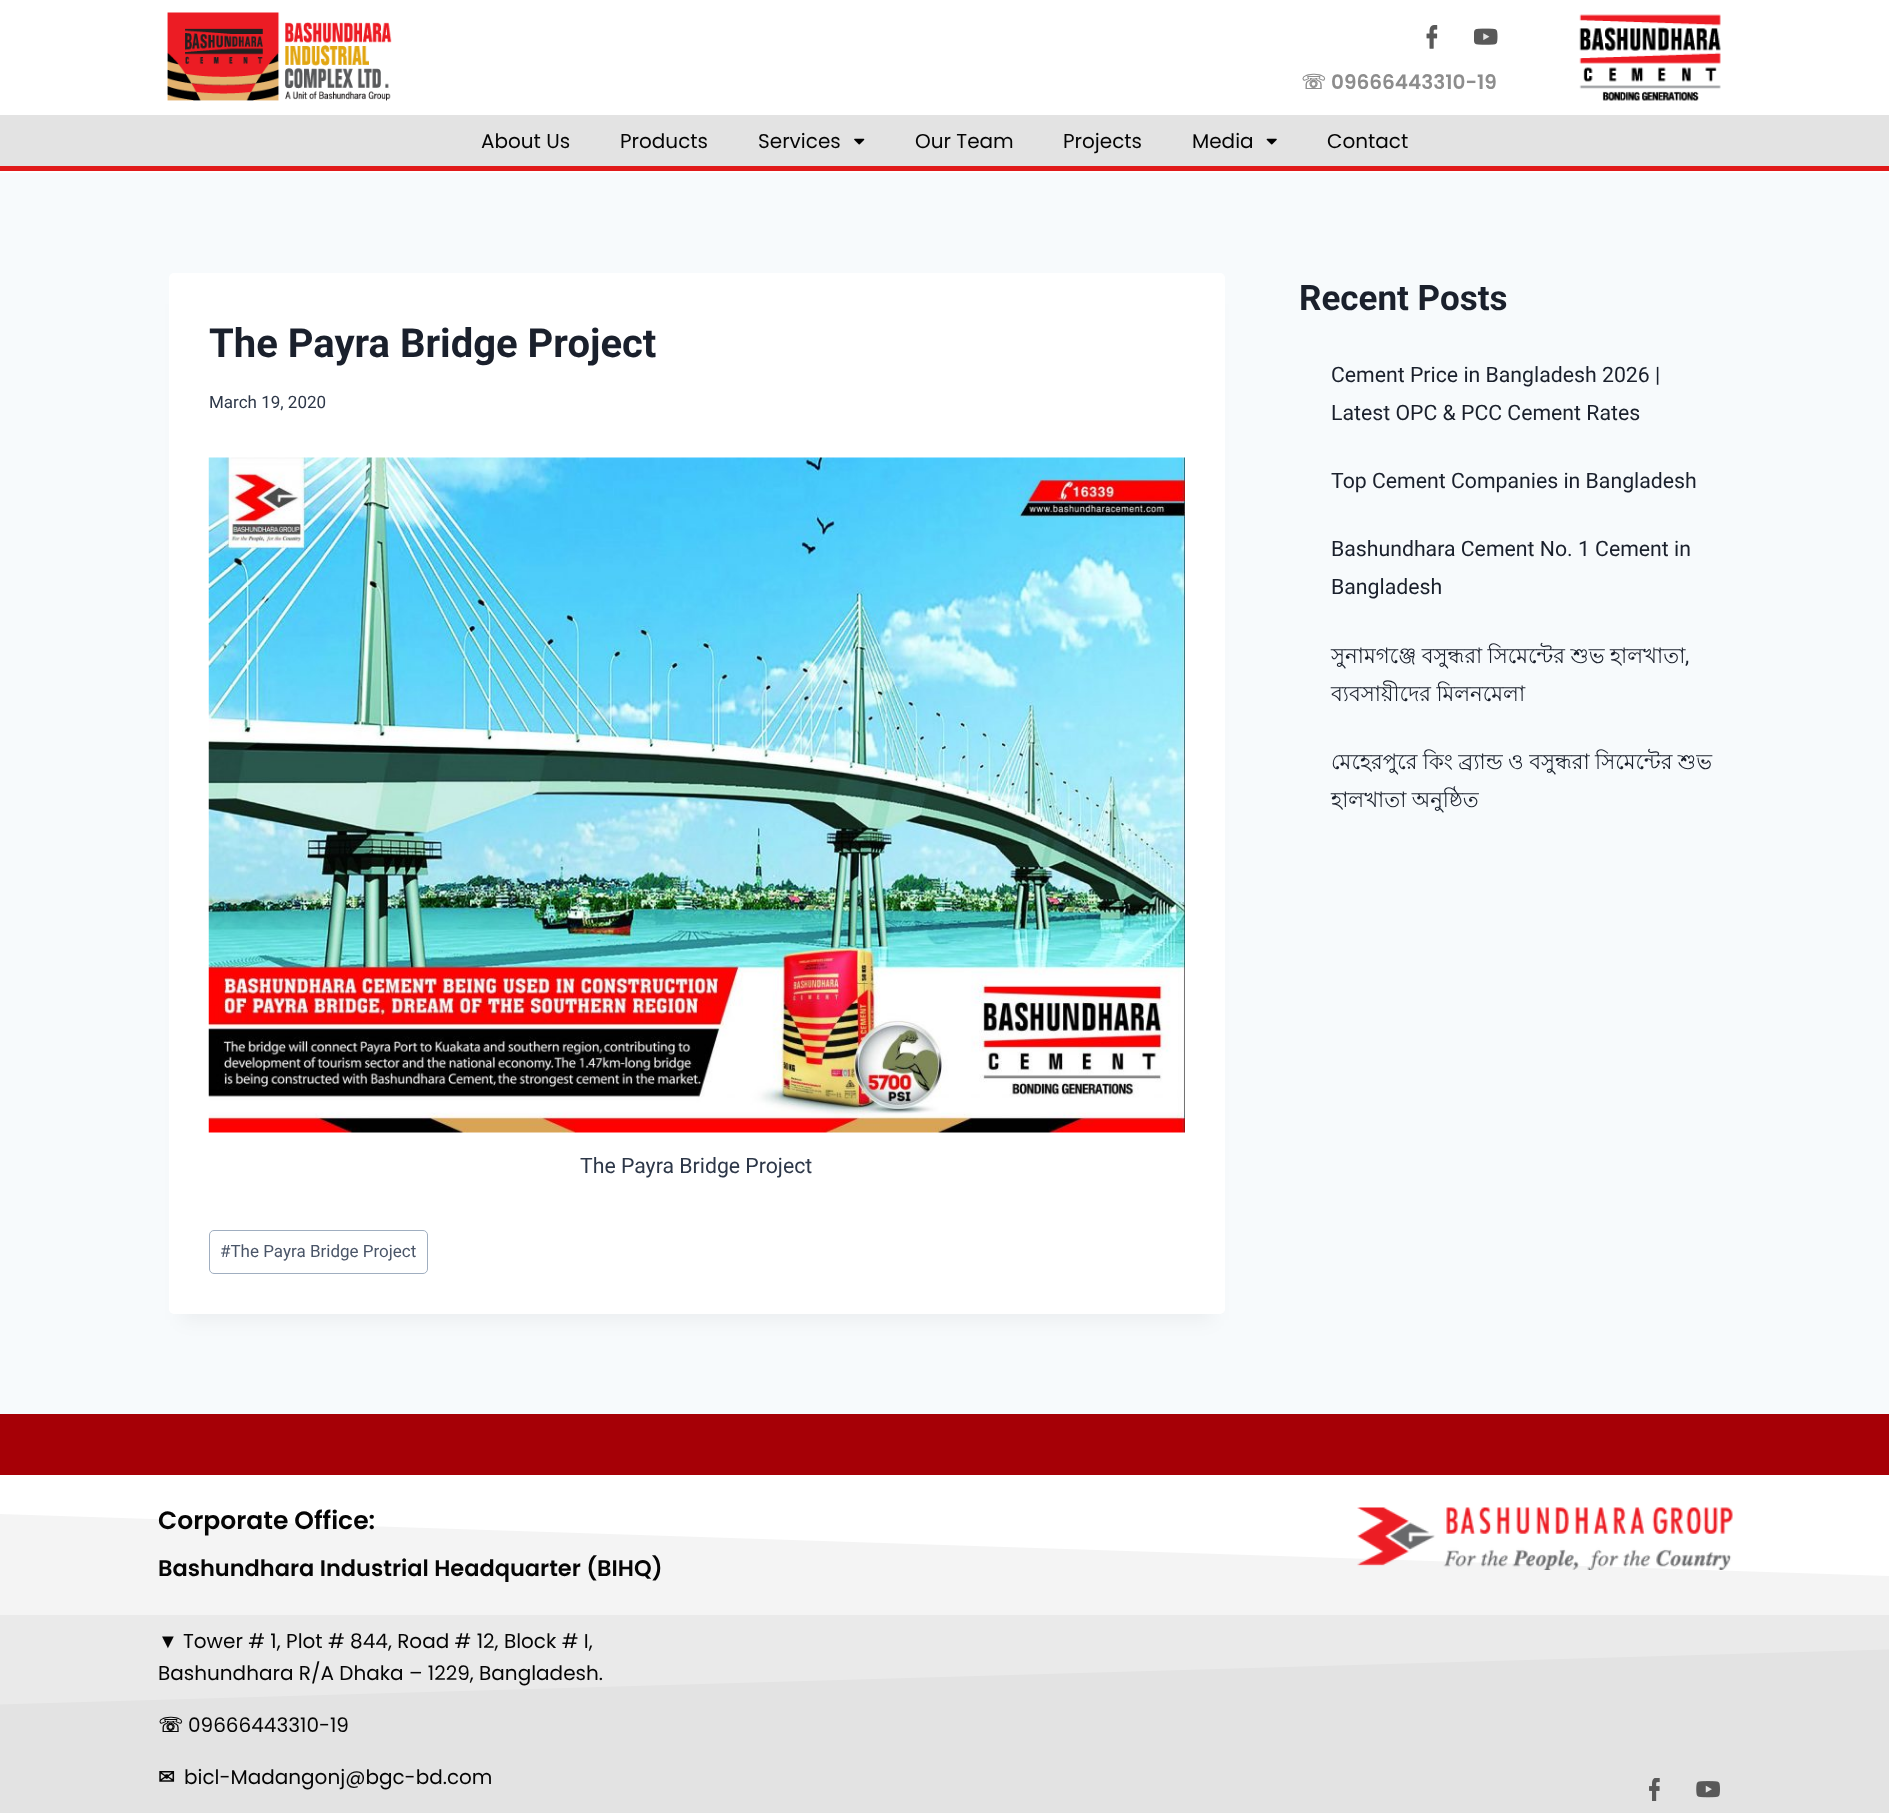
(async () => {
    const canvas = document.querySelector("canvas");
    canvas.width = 1889;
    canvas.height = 1813;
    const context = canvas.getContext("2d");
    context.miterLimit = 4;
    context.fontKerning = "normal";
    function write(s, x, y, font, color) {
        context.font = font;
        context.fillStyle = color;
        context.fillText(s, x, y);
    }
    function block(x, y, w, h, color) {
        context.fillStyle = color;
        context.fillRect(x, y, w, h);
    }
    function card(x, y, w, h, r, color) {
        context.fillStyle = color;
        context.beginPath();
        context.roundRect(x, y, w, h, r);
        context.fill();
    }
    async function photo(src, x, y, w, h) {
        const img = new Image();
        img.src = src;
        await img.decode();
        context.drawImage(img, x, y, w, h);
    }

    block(0, 0, 1889, 1813, "rgb(247, 250, 252)");
    block(0, 0, 1889, 173, "rgb(255, 255, 255)");
    await photo("media/1.png", 167, 12, 225, 89);
    await photo("media/2.png", 1426, 25, 12, 24);
    await photo("media/3.png", 1474, 28, 24, 17);
    write("☏", 1301, 89, "bold 20px DejaVu Sans", "rgb(141, 141, 141)");
    write("09666443310-19", 1331, 89, "600 20px Poppins", "rgb(141, 141, 141)");
    await photo("media/4.png", 1579, 14, 142, 87);
    block(0, 166, 1889, 5, "rgb(225, 26, 26)");
    block(0, 115, 1889, 51, "rgb(227, 227, 227)");
    write("About Us", 481, 148, "20px Poppins", "rgb(5, 5, 5)");
    write("Products", 620, 148, "20px Poppins", "rgb(5, 5, 5)");
    write("Services", 758, 148, "20px Poppins", "rgb(5, 5, 5)");
    await photo("media/5.png", 854, 138, 11, 7);
    write("Our Team", 915, 148, "20px Poppins", "rgb(5, 5, 5)");
    write("Projects", 1063, 148, "20px Poppins", "rgb(5, 5, 5)");
    write("Media", 1192, 148, "20px Poppins", "rgb(5, 5, 5)");
    await photo("media/6.png", 1266, 138, 11, 7);
    write("Contact", 1327, 148, "20px Poppins", "rgb(5, 5, 5)");
    context.fillStyle = "rgba(0, 0, 0, 0.05)";
    context.filter = "blur(9.5px)";
    context.beginPath();
    context.rect(181, 304, 1032, 1016);
    context.fill();
    context.filter = "none";
    card(169, 273, 1056, 1041, 5, "rgb(255, 255, 255)");
    write("The Payra Bridge Project", 209, 357, "bold 40px Roboto", "rgb(26, 32, 44)");
    write("March 19, 2020", 209, 408, "17px Roboto", "rgb(45, 55, 72)");
    await photo("media/7.png", 208, 457, 977, 676);
    write("The Payra Bridge Project", 580, 1173, "21.25px Roboto", "rgb(45, 55, 72)");
    context.beginPath();
    context.roundRect(209.5, 1230.5, 218, 43, 4.5);
    context.strokeStyle = "rgb(160, 174, 192)";
    context.stroke();
    write("#The Payra Bridge Project", 220, 1257, "17px Roboto", "rgb(74, 85, 104)");
    write("Recent Posts", 1299, 310, "bold 35px Roboto", "rgb(26, 32, 44)");
    write("Cement Price in Bangladesh 2026 |", 1331, 382, "21.25px Roboto", "rgb(26, 32, 44)");
    write("Latest OPC & PCC Cement Rates", 1331, 420, "21.25px Roboto", "rgb(26, 32, 44)");
    write("Top Cement Companies in Bangladesh", 1331, 488, "21.25px Roboto", "rgb(26, 32, 44)");
    write("Bashundhara Cement No. 1 Cement in", 1331, 556, "21.25px Roboto", "rgb(26, 32, 44)");
    write("Bangladesh", 1331, 594, "21.25px Roboto", "rgb(26, 32, 44)");
    context.wordSpacing = "-0.5px";
    write("সুনামগঞ্জে বসুন্ধরা সিমেন্টের শুভ হালখাতা", 1331, 663, "21.25px Lohit Bengali", "rgb(26, 32, 44)");
    context.wordSpacing = "0px";
    write(",", 1685, 663, "21.25px Roboto", "rgb(26, 32, 44)");
    context.wordSpacing = "-0.5px";
    write("ব্যবসায়ীদের মিলনমেলা", 1331, 701, "21.25px Lohit Bengali", "rgb(26, 32, 44)");
    write("মেহেরপুরে কিং ব্র্যান্ড ও বসুন্ধরা সিমেন্টের শুভ", 1331, 769, "21.25px Lohit Bengali", "rgb(26, 32, 44)");
    write("হালখাতা অনুষ্ঠিত", 1331, 807, "21.25px Lohit Bengali", "rgb(26, 32, 44)");
    block(0, 1615, 1889, 198, "rgb(227, 227, 227)");
    block(0, 1513, 1889, 102, "rgb(241, 241, 241)");
    block(0, 1414, 1889, 61, "rgb(166, 0, 6)");
    context.fillStyle = "rgb(255, 255, 255)";
    context.beginPath();
    context.moveTo(-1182, 1475);
    context.lineTo(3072, 1475);
    context.lineTo(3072, 1615);
    context.closePath();
    context.fill();
    context.fillStyle = "rgba(255, 255, 255, 0.25)";
    context.beginPath();
    context.moveTo(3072, 1475);
    context.lineTo(-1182, 1475);
    context.lineTo(-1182, 1739);
    context.lineTo(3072, 1615);
    context.closePath();
    context.fill();
    context.wordSpacing = "0px";
    write("Corporate Office:", 158, 1529, "600 25px Poppins", "rgb(5, 5, 5)");
    write("Bashundhara Industrial Headquarter (BIHQ)", 158, 1576, "600 22.5px Poppins", "rgb(5, 5, 5)");
    write("▼", 158, 1648, "bold 20px Liberation Sans", "rgb(5, 5, 5)");
    write("Tower # 1, Plot # 844, Road # 12, Block # I,", 183, 1648, "20px Poppins", "rgb(5, 5, 5)");
    write("Bashundhara R/A Dhaka – 1229, Bangladesh.", 158, 1680, "20px Poppins", "rgb(5, 5, 5)");
    write("☏", 158, 1732, "bold 20px DejaVu Sans", "rgb(5, 5, 5)");
    write("09666443310-19", 188, 1732, "20px Poppins", "rgb(5, 5, 5)");
    write("✉", 158, 1784, "bold 20px DejaVu Sans", "rgb(5, 5, 5)");
    write("bicl-Madangonj@bgc-bd.com", 184, 1784, "20px Poppins", "rgb(5, 5, 5)");
    await photo("media/8.png", 1357, 1507, 376, 63);
    await photo("media/9.png", 1649, 1778, 11, 23);
    await photo("media/10.png", 1696, 1781, 24, 17);
})();
